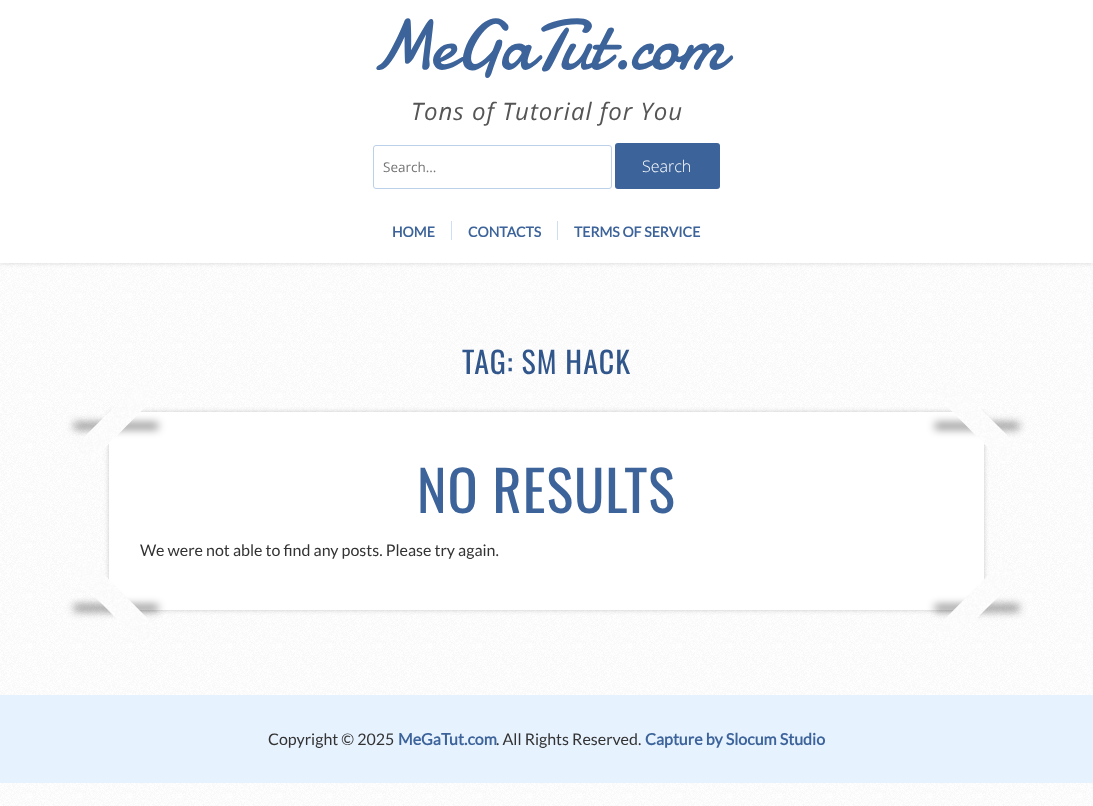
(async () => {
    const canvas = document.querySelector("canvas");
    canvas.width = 1093;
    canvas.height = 806;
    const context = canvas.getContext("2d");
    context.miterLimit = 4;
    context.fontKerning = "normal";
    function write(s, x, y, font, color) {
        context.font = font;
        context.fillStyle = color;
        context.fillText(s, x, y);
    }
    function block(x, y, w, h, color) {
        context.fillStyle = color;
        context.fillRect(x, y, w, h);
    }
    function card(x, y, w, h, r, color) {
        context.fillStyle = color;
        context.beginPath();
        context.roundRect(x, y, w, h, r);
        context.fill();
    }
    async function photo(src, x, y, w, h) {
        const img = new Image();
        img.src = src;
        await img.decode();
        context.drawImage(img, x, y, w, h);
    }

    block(0, 0, 1093, 806, "rgb(255, 255, 255)");
    await photo("media/1.png", 0, 263, 1093, 543);
    context.fillStyle = "rgba(0, 0, 0, 0.15)";
    context.filter = "blur(2.5px)";
    context.beginPath();
    context.rect(0, -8, 1093, 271);
    context.fill();
    context.filter = "none";
    block(0, 0, 1093, 263, "rgb(255, 255, 255)");
    context.letterSpacing = "-2px";
    write("MeGaTut.com", 370, 69, "72px Damion", "rgb(60, 99, 154)");
    context.letterSpacing = "1px";
    write("Tons of Tutorial for You", 411, 120, "italic 24px Open Sans", "rgb(85, 85, 85)");
    context.beginPath();
    context.roundRect(373.5, 145.5, 238, 43, 2.5);
    context.strokeStyle = "rgb(187, 208, 233)";
    context.stroke();
    context.letterSpacing = "0px";
    write("Search...", 383, 172, "13.5px Open Sans", "rgb(117, 117, 117)");
    card(615, 143, 105, 46, 3, "rgb(60, 99, 154)");
    write("Search", 642, 172, "300 16px Open Sans", "rgb(255, 255, 255)");
    write("HOME", 392, 237, "bold 14px Lato", "rgb(60, 99, 154)");
    block(451, 221, 1, 19, "rgb(206, 223, 243)");
    write("CONTACTS", 468, 237, "bold 14px Lato", "rgb(60, 99, 154)");
    block(557, 221, 1, 19, "rgb(206, 223, 243)");
    write("TERMS OF SERVICE", 574, 237, "bold 14px Lato", "rgb(60, 99, 154)");
    context.letterSpacing = "1px";
    write("TAG: SM HACK", 462, 374, "30px Oswald", "rgb(48, 86, 139)");
    context.fillStyle = "rgba(0, 0, 0, 0.2)";
    context.filter = "blur(2.5px)";
    context.beginPath();
    context.roundRect(109, 412, 875, 198, 3);
    context.fill();
    context.filter = "none";
    block(109, 412, 875, 198, "rgb(255, 255, 255)");
    context.fillStyle = "rgba(0, 0, 0, 0.5)";
    context.filter = "blur(4.5px)";
    context.beginPath();
    context.rect(74, 423, 84, 6);
    context.fill();
    context.filter = "none";
    context.fillStyle = "rgb(255, 255, 255)";
    context.beginPath();
    context.moveTo(73, 448);
    context.lineTo(144, 377);
    context.lineTo(159, 393);
    context.lineTo(89, 464);
    context.closePath();
    context.fill();
    await photo("media/2.png", 74, 377, 83, 86);
    context.fillStyle = "rgba(0, 0, 0, 0.5)";
    context.filter = "blur(4.5px)";
    context.beginPath();
    context.rect(935, 423, 84, 6);
    context.fill();
    context.filter = "none";
    context.fillStyle = "rgb(255, 255, 255)";
    context.beginPath();
    context.moveTo(949, 377);
    context.lineTo(1020, 448);
    context.lineTo(1004, 464);
    context.lineTo(934, 393);
    context.closePath();
    context.fill();
    await photo("media/3.png", 935, 378, 85, 83);
    write("NO RESULTS", 417, 513, "56px Oswald", "rgb(60, 99, 154)");
    context.letterSpacing = "0px";
    write("We were not able to find any posts. Please try again.", 140, 556, "16px Lato", "rgb(51, 51, 51)");
    context.fillStyle = "rgba(0, 0, 0, 0.5)";
    context.filter = "blur(4.5px)";
    context.beginPath();
    context.rect(74, 605, 84, 6);
    context.fill();
    context.filter = "none";
    context.fillStyle = "rgb(255, 255, 255)";
    context.beginPath();
    context.moveTo(144, 646);
    context.lineTo(73, 575);
    context.lineTo(89, 559);
    context.lineTo(159, 630);
    context.closePath();
    context.fill();
    await photo("media/4.png", 73, 561, 85, 83);
    context.fillStyle = "rgba(0, 0, 0, 0.5)";
    context.filter = "blur(4.5px)";
    context.beginPath();
    context.rect(935, 605, 84, 6);
    context.fill();
    context.filter = "none";
    context.fillStyle = "rgb(255, 255, 255)";
    context.beginPath();
    context.moveTo(1020, 575);
    context.lineTo(949, 646);
    context.lineTo(934, 630);
    context.lineTo(1004, 559);
    context.closePath();
    context.fill();
    await photo("media/5.png", 936, 559, 83, 86);
    block(0, 695, 1093, 88, "rgb(231, 242, 255)");
    write("Copyright © 2025", 268, 745, "16px Lato", "rgb(51, 51, 51)");
    write("MeGaTut.com", 398, 745, "bold 16px Lato", "rgb(60, 99, 154)");
    write(". All Rights Reserved.", 496, 745, "16px Lato", "rgb(51, 51, 51)");
    write("Capture by Slocum Studio", 645, 745, "bold 16px Lato", "rgb(60, 99, 154)");
})();
